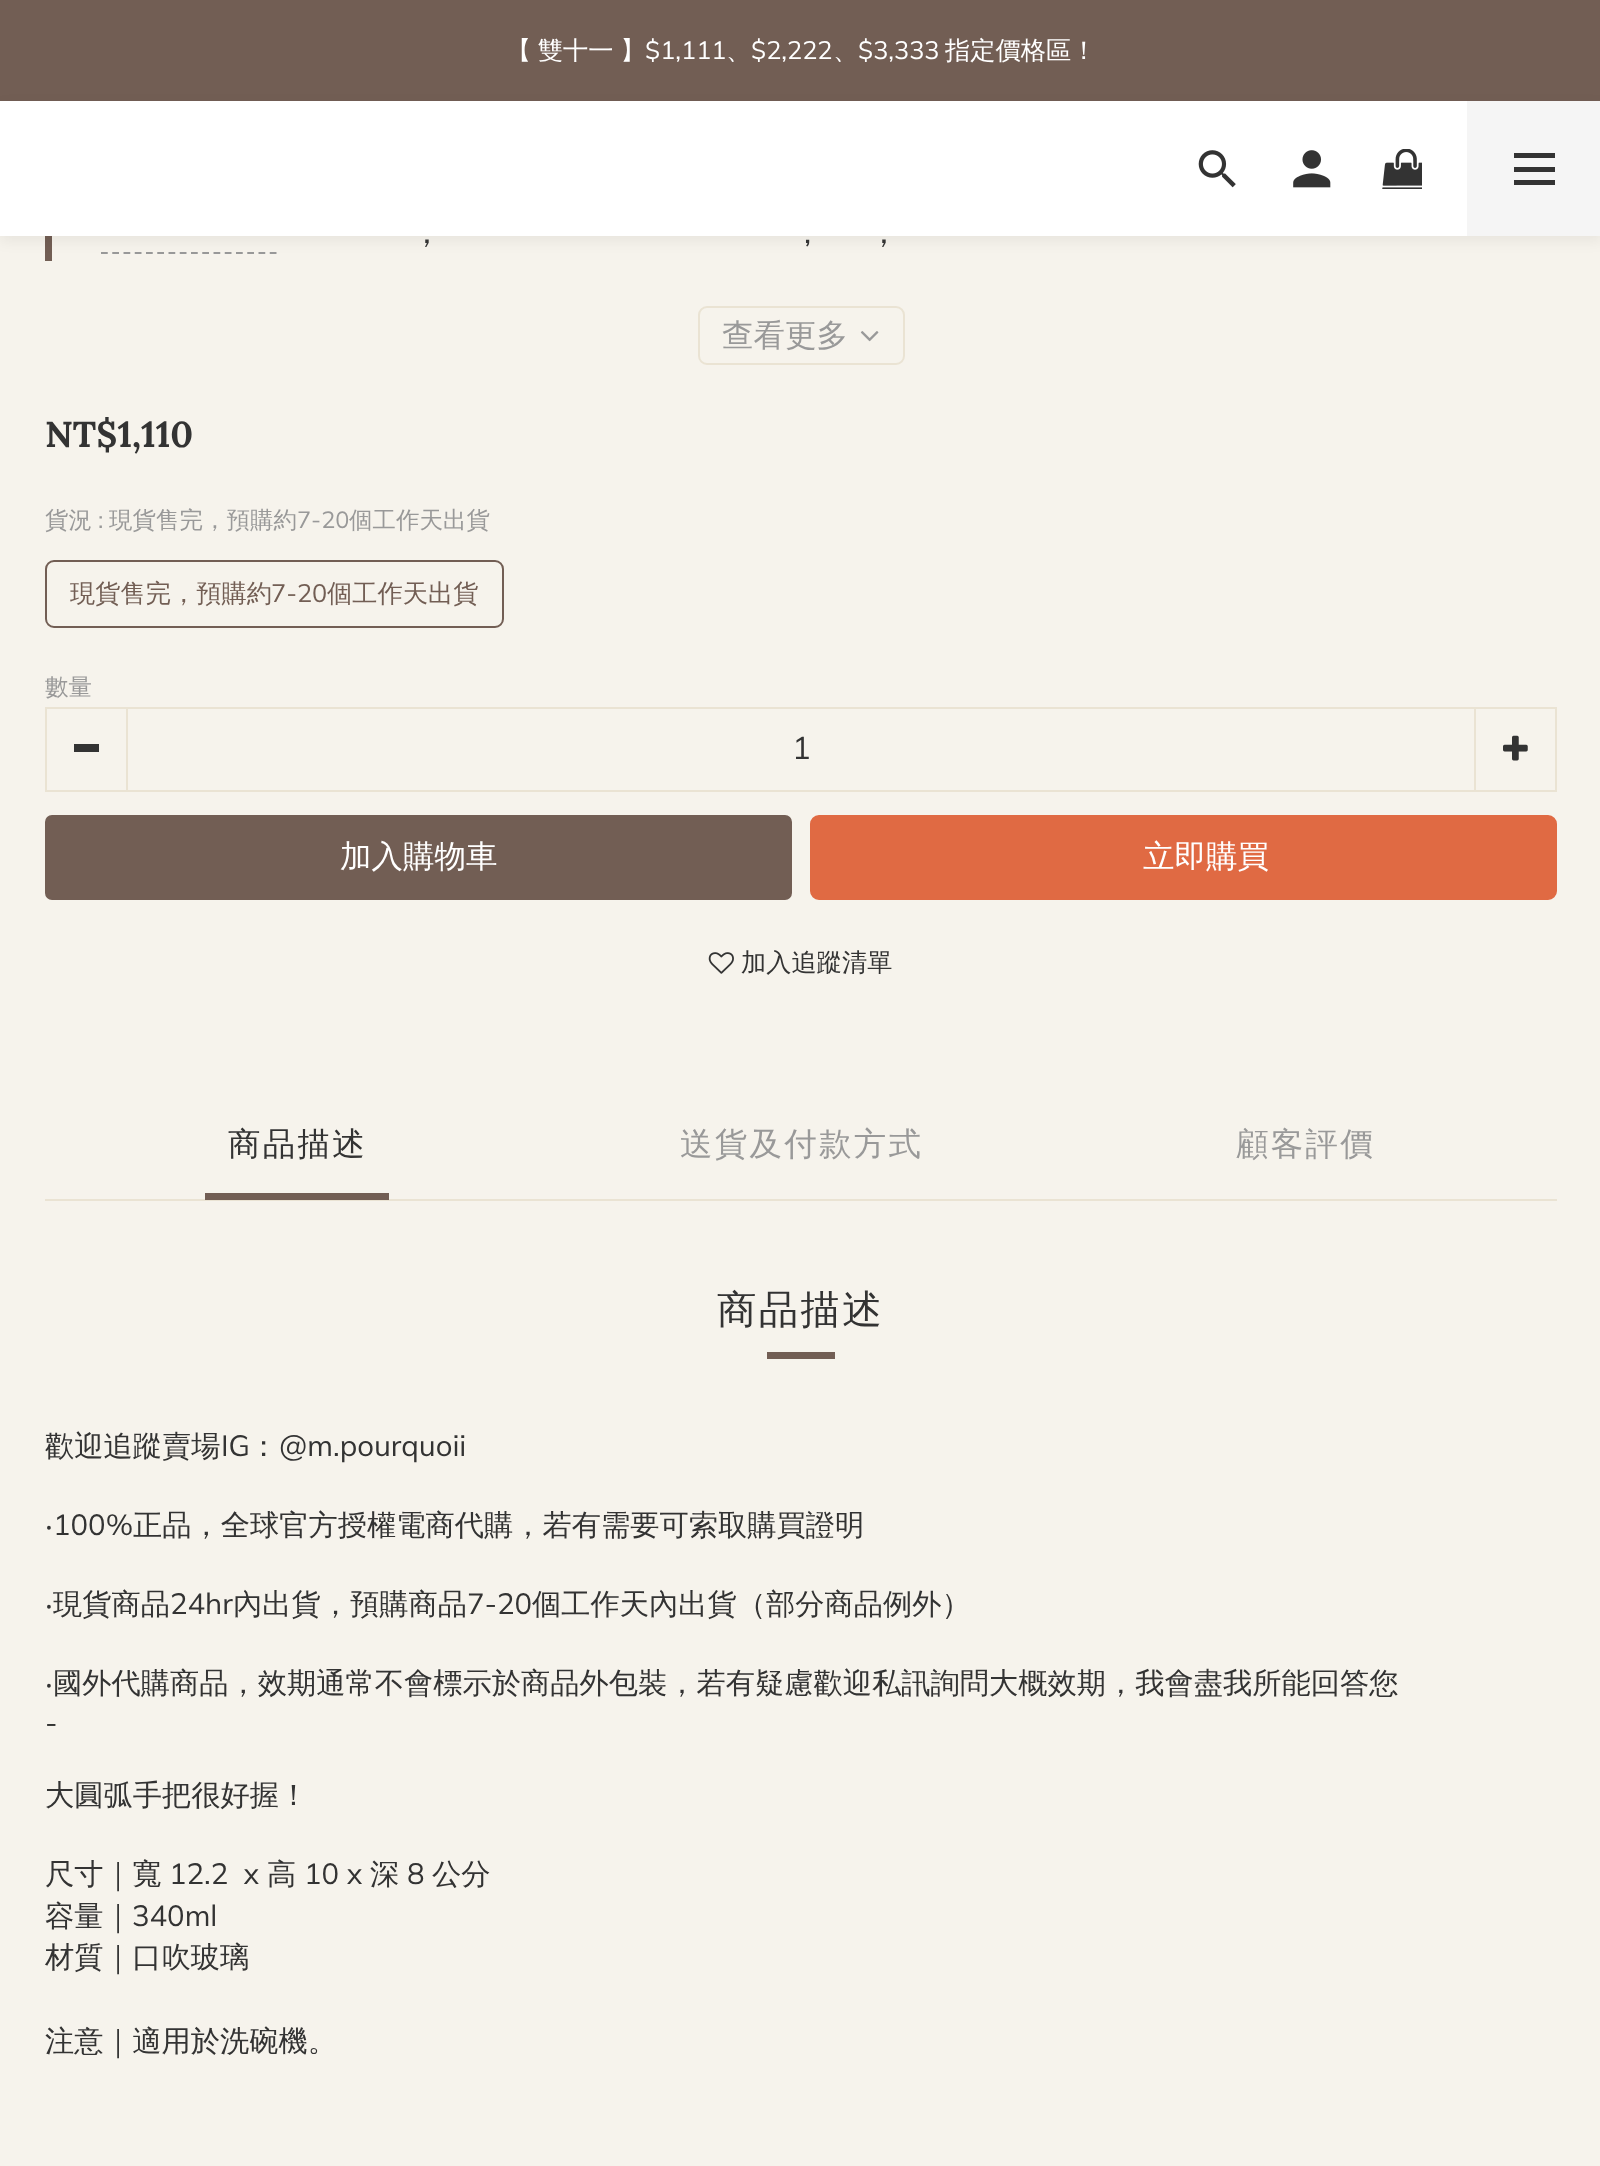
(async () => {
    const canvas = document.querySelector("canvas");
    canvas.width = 1600;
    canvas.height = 2166;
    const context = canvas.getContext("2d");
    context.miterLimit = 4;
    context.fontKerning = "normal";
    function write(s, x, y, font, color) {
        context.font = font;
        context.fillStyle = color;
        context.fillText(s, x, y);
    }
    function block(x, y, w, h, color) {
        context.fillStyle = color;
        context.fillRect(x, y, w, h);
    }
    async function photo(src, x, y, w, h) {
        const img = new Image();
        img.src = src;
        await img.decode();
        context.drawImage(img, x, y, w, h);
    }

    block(0, 0, 1600, 2166, "rgb(246, 243, 236)");
    block(0, 0, 1600, 101, "rgb(114, 94, 84)");
    context.wordSpacing = "-1px";
    write("【 雙十一 】", 506, 59, "500 25.25px WenQuanYi Zen Hei", "rgb(255, 255, 255)");
    context.wordSpacing = "0px";
    write("$1,111", 645, 59, "25.25px Mulish", "rgb(255, 255, 255)");
    write("、", 726, 59, "500 25.25px WenQuanYi Zen Hei", "rgb(255, 255, 255)");
    write("$2,222", 751, 59, "25.25px Mulish", "rgb(255, 255, 255)");
    write("、", 833, 59, "500 25.25px WenQuanYi Zen Hei", "rgb(255, 255, 255)");
    write("$3,333", 858, 59, "25.25px Mulish", "rgb(255, 255, 255)");
    write("指定價格區！", 945, 59, "500 25.25px WenQuanYi Zen Hei", "rgb(255, 255, 255)");
    block(45, 236, 7, 25, "rgb(114, 94, 84)");
    context.beginPath();
    context.moveTo(101, 253);
    context.lineTo(277, 253);
    context.strokeStyle = "rgb(153, 153, 153)";
    context.lineWidth = 2.2;
    context.setLineDash([6.75, 4.5]);
    context.stroke();
    context.fillStyle = "rgba(0, 0, 0, 0.06)";
    context.filter = "blur(7px)";
    context.beginPath();
    context.rect(0, 106, 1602, 135);
    context.fill();
    context.filter = "none";
    block(0, 101, 1467, 135, "rgb(255, 255, 255)");
    await photo("media/1.png", 1198, 150, 38, 38);
    await photo("media/2.png", 1293, 150, 38, 38);
    await photo("media/3.png", 1382, 149, 40, 40);
    block(1467, 101, 133, 135, "rgb(245, 245, 245)");
    block(1514, 167, 41, 5, "rgb(51, 51, 51)");
    block(1514, 153, 41, 5, "rgb(51, 51, 51)");
    block(1514, 180, 41, 5, "rgb(51, 51, 51)");
    write("，", 411, 243, "500 31.5px WenQuanYi Zen Hei", "rgb(51, 51, 51)");
    write(",", 804, 243, "31.5px Mulish", "rgb(51, 51, 51)");
    write("，", 868, 243, "500 31.5px WenQuanYi Zen Hei", "rgb(51, 51, 51)");
    context.beginPath();
    context.roundRect(699, 307, 205, 57, 8);
    context.strokeStyle = "rgb(234, 227, 211)";
    context.lineWidth = 2;
    context.setLineDash([]);
    context.stroke();
    write("查看更多", 722, 346, "500 31.5px WenQuanYi Zen Hei", "rgb(153, 153, 153)");
    await photo("media/4.png", 860, 331, 19, 11);
    write("NT$1,110", 45, 447, "bold 36px Lora", "rgb(51, 51, 51)");
    write("貨況", 45, 528, "500 23.5px WenQuanYi Zen Hei", "rgb(153, 153, 153)");
    write(":", 98, 528, "23.5px Mulish", "rgb(153, 153, 153)");
    write("現貨售完，預購約", 109, 528, "500 23.5px WenQuanYi Zen Hei", "rgb(153, 153, 153)");
    write("7-20", 297, 528, "23.5px Mulish", "rgb(153, 153, 153)");
    write("個工作天出貨", 349, 528, "500 23.5px WenQuanYi Zen Hei", "rgb(153, 153, 153)");
    context.beginPath();
    context.roundRect(46, 561, 457, 66, 8);
    context.strokeStyle = "rgb(114, 94, 84)";
    context.stroke();
    write("現貨售完，預購約", 70, 602, "500 25.25px WenQuanYi Zen Hei", "rgb(114, 94, 84)");
    write("7-20", 271, 602, "25.25px Mulish", "rgb(114, 94, 84)");
    write("個工作天出貨", 327, 602, "500 25.25px WenQuanYi Zen Hei", "rgb(114, 94, 84)");
    write("數量", 45, 695, "500 23.5px WenQuanYi Zen Hei", "rgb(153, 153, 153)");
    block(126, 707, 1350, 2, "rgb(234, 227, 211)");
    block(126, 790, 1350, 2, "rgb(234, 227, 211)");
    context.strokeStyle = "rgb(234, 227, 211)";
    context.strokeRect(46, 708, 81, 83);
    block(74, 744, 25, 8, "rgb(51, 51, 51)");
    write("1", 792, 759, "31.5px Mulish", "rgb(51, 51, 51)");
    context.strokeRect(1475, 708, 81, 83);
    await photo("media/5.png", 1503, 735, 25, 26);
    context.fillStyle = "rgb(114, 94, 84)";
    context.beginPath();
    context.roundRect(46, 816, 745, 83, 6);
    context.fill();
    context.strokeStyle = "rgb(114, 94, 84)";
    context.stroke();
    write("加入購物車", 340, 867, "500 31.5px WenQuanYi Zen Hei", "rgb(255, 255, 255)");
    context.fillStyle = "rgb(224, 106, 67)";
    context.beginPath();
    context.roundRect(811, 816, 745, 83, 8);
    context.fill();
    context.strokeStyle = "rgb(224, 106, 67)";
    context.stroke();
    write("立即購買", 1143, 867, "500 31.5px WenQuanYi Zen Hei", "rgb(255, 255, 255)");
    await photo("media/6.png", 708, 952, 26, 22);
    write("加入追蹤清單", 741, 971, "500 25.25px WenQuanYi Zen Hei", "rgb(51, 51, 51)");
    block(45, 1199, 1512, 2, "rgb(234, 227, 211)");
    context.letterSpacing = "2.25px";
    write("商品描述", 228, 1155, "500 32.5px WenQuanYi Zen Hei", "rgb(51, 51, 51)");
    block(205, 1193, 184, 7, "rgb(114, 94, 84)");
    write("送貨及付款方式", 680, 1155, "500 32.5px WenQuanYi Zen Hei", "rgb(153, 153, 153)");
    write("顧客評價", 1236, 1155, "500 32.5px WenQuanYi Zen Hei", "rgb(153, 153, 153)");
    write("商品描述", 717, 1323, "500 39.5px WenQuanYi Zen Hei", "rgb(51, 51, 51)");
    block(767, 1352, 68, 7, "rgb(114, 94, 84)");
    context.letterSpacing = "0px";
    write("歡迎追蹤賣場", 45, 1456, "500 29.25px WenQuanYi Zen Hei", "rgb(51, 51, 51)");
    write("IG", 221, 1456, "29.25px Mulish", "rgb(51, 51, 51)");
    write("：", 249, 1456, "500 29.25px WenQuanYi Zen Hei", "rgb(51, 51, 51)");
    write("@m.pourquoii", 279, 1456, "29.25px Mulish", "rgb(51, 51, 51)");
    write("‧", 45, 1535, "29.25px Noto Sans", "rgb(51, 51, 51)");
    write("100%", 53, 1535, "29.25px Mulish", "rgb(51, 51, 51)");
    write("正品，全球官方授權電商代購，若有需要可索取購買證明", 133, 1535, "500 29.25px WenQuanYi Zen Hei", "rgb(51, 51, 51)");
    write("‧", 45, 1614, "29.25px Noto Sans", "rgb(51, 51, 51)");
    write("現貨商品", 53, 1614, "500 29.25px WenQuanYi Zen Hei", "rgb(51, 51, 51)");
    write("24hr", 170, 1614, "29.25px Mulish", "rgb(51, 51, 51)");
    write("內出貨，預購商品", 233, 1614, "500 29.25px WenQuanYi Zen Hei", "rgb(51, 51, 51)");
    write("7-20", 467, 1614, "29.25px Mulish", "rgb(51, 51, 51)");
    write("個工作天內出貨（部分商品例外）", 532, 1614, "500 29.25px WenQuanYi Zen Hei", "rgb(51, 51, 51)");
    write("‧", 45, 1693, "29.25px Noto Sans", "rgb(51, 51, 51)");
    write("國外代購商品，效期通常不會標示於商品外包裝，若有疑慮歡迎私訊詢問大概效期，我會盡我所能回答您", 53, 1693, "500 29.25px WenQuanYi Zen Hei", "rgb(51, 51, 51)");
    write("-", 45, 1733, "29.25px Mulish", "rgb(51, 51, 51)");
    write("大圓弧手把很好握！", 45, 1805, "500 29.25px WenQuanYi Zen Hei", "rgb(51, 51, 51)");
    write("尺寸｜寬", 45, 1884, "500 29.25px WenQuanYi Zen Hei", "rgb(51, 51, 51)");
    write("12.2  x", 169, 1884, "29.25px Mulish", "rgb(51, 51, 51)");
    write("高", 267, 1884, "500 29.25px WenQuanYi Zen Hei", "rgb(51, 51, 51)");
    write("10 x", 304, 1884, "29.25px Mulish", "rgb(51, 51, 51)");
    write("深", 370, 1884, "500 29.25px WenQuanYi Zen Hei", "rgb(51, 51, 51)");
    write("8", 407, 1884, "29.25px Mulish", "rgb(51, 51, 51)");
    write("公分", 432, 1884, "500 29.25px WenQuanYi Zen Hei", "rgb(51, 51, 51)");
    write("容量｜", 45, 1926, "500 29.25px WenQuanYi Zen Hei", "rgb(51, 51, 51)");
    write("340ml", 132, 1926, "29.25px Mulish", "rgb(51, 51, 51)");
    write("材質｜口吹玻璃", 45, 1967, "500 29.25px WenQuanYi Zen Hei", "rgb(51, 51, 51)");
    write("注意｜適用於洗碗機。", 45, 2051, "500 29.25px WenQuanYi Zen Hei", "rgb(51, 51, 51)");
})();
